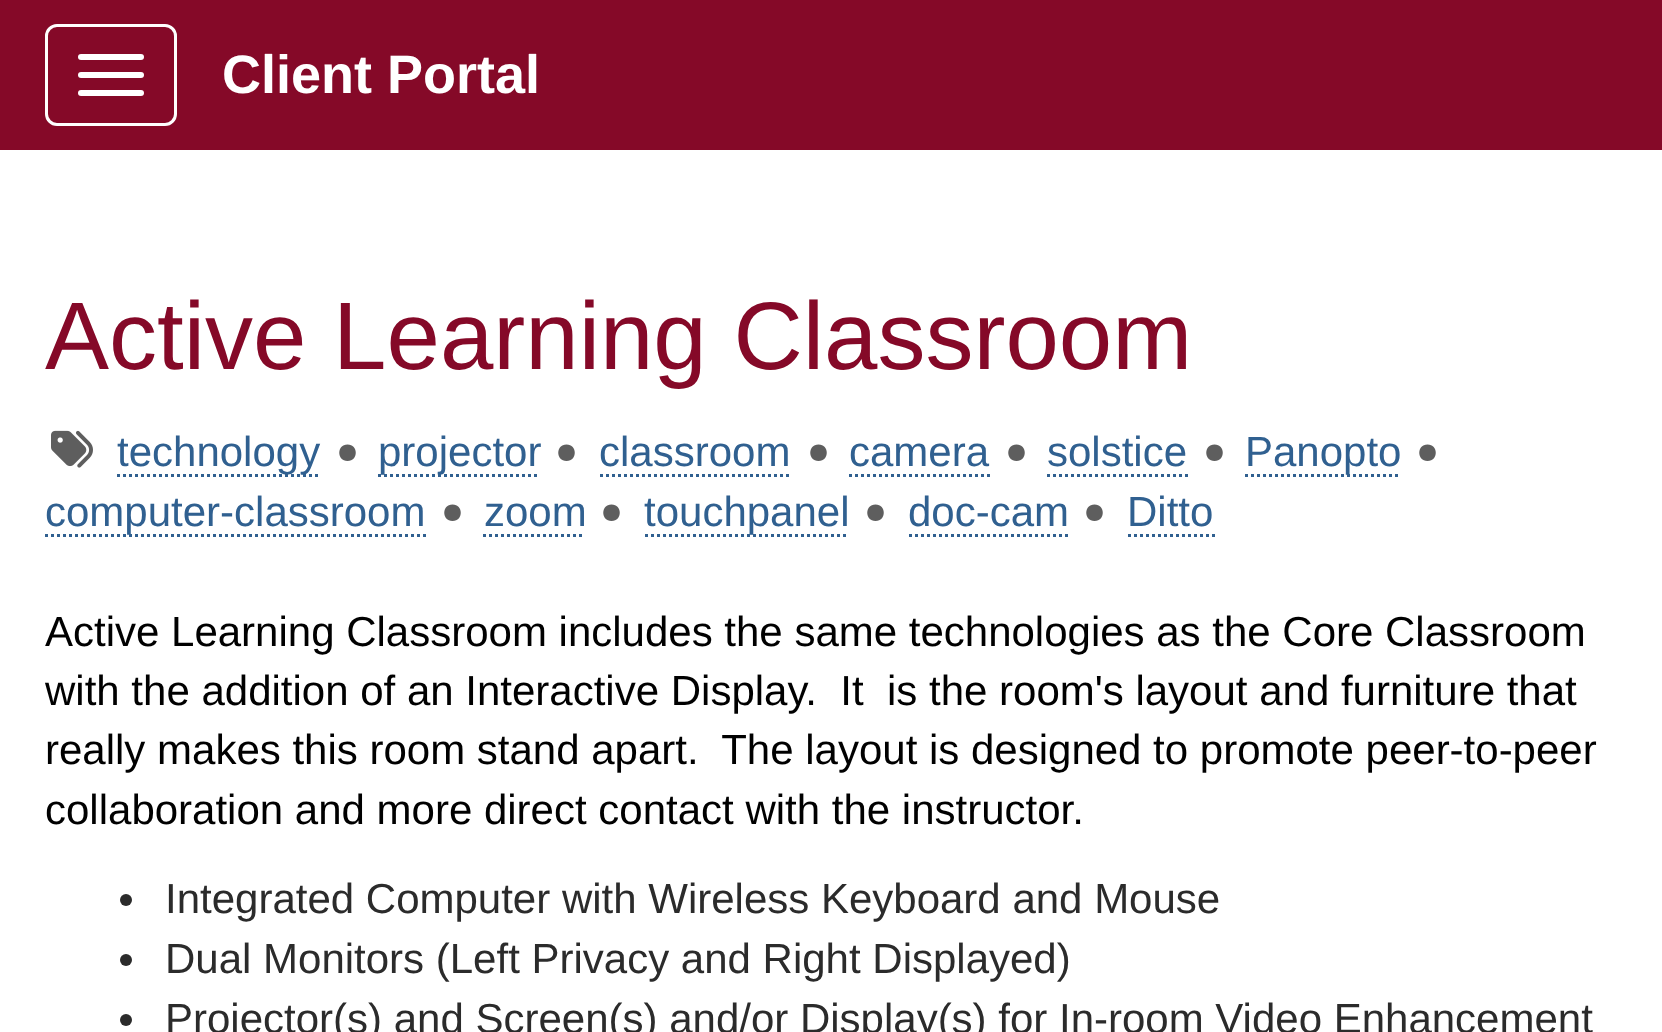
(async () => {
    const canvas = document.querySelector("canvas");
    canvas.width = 1662;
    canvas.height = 1032;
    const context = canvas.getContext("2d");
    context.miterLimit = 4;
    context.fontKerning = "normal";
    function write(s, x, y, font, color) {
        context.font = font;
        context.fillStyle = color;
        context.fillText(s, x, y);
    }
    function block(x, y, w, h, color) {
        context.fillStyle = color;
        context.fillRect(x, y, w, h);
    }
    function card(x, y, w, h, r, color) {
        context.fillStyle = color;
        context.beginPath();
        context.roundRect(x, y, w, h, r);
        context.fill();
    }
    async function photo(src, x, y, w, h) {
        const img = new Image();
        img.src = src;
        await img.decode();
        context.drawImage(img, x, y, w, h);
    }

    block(0, 0, 1662, 1032, "rgb(255, 255, 255)");
    block(0, 0, 1662, 150, "rgb(133, 9, 40)");
    context.beginPath();
    context.roundRect(46.5, 25.5, 129, 99, 10.5);
    context.strokeStyle = "rgb(255, 255, 255)";
    context.lineWidth = 3;
    context.stroke();
    card(78, 54, 66, 6, 3, "rgb(255, 255, 255)");
    card(78, 72, 66, 6, 3, "rgb(255, 255, 255)");
    card(78, 90, 66, 6, 3, "rgb(255, 255, 255)");
    write("Client Portal", 222, 93, "bold 54px Liberation Sans", "rgb(255, 255, 255)");
    write("Active Learning Classroom", 45, 369, "96px Liberation Sans", "rgb(133, 9, 40)");
    await photo("media/1.png", 51, 430, 42, 38);
    context.beginPath();
    context.moveTo(117, 475.5);
    context.lineTo(321, 475.5);
    context.strokeStyle = "rgb(48, 96, 144)";
    context.setLineDash([3, 3]);
    context.stroke();
    write("technology", 117, 466, "42px Liberation Sans", "rgb(48, 96, 144)");
    context.fillStyle = "rgb(94, 94, 94)";
    context.beginPath();
    context.moveTo(347.5, 461);
    context.bezierCurveTo(358.5, 461, 358.5, 444.5, 347.5, 444.5);
    context.bezierCurveTo(336.5, 444.5, 336.5, 461, 347.5, 461);
    context.closePath();
    context.fill();
    context.beginPath();
    context.moveTo(378, 475.5);
    context.lineTo(540, 475.5);
    context.stroke();
    write("projector", 378, 466, "42px Liberation Sans", "rgb(48, 96, 144)");
    context.fillStyle = "rgb(94, 94, 94)";
    context.beginPath();
    context.moveTo(566.5, 461);
    context.bezierCurveTo(577.5, 461, 577.5, 444.5, 566.5, 444.5);
    context.bezierCurveTo(555.5, 444.5, 555.5, 461, 566.5, 461);
    context.closePath();
    context.fill();
    write("classroom", 599, 466, "42px Liberation Sans", "rgb(48, 96, 144)");
    context.beginPath();
    context.moveTo(600, 475.5);
    context.lineTo(792, 475.5);
    context.stroke();
    context.fillStyle = "rgb(94, 94, 94)";
    context.beginPath();
    context.moveTo(818.5, 461);
    context.bezierCurveTo(829.5, 461, 829.5, 444.5, 818.5, 444.5);
    context.bezierCurveTo(807.5, 444.5, 807.5, 461, 818.5, 461);
    context.closePath();
    context.fill();
    write("camera", 849, 466, "42px Liberation Sans", "rgb(48, 96, 144)");
    context.beginPath();
    context.moveTo(849, 475.5);
    context.lineTo(990, 475.5);
    context.stroke();
    context.fillStyle = "rgb(94, 94, 94)";
    context.beginPath();
    context.moveTo(1016.5, 461);
    context.bezierCurveTo(1027.5, 461, 1027.5, 444.5, 1016.5, 444.5);
    context.bezierCurveTo(1005.5, 444.5, 1005.5, 461, 1016.5, 461);
    context.closePath();
    context.fill();
    write("solstice", 1047, 466, "42px Liberation Sans", "rgb(48, 96, 144)");
    context.beginPath();
    context.moveTo(1047, 475.5);
    context.lineTo(1188, 475.5);
    context.stroke();
    context.fillStyle = "rgb(94, 94, 94)";
    context.beginPath();
    context.moveTo(1214.5, 461);
    context.bezierCurveTo(1225.5, 461, 1225.5, 444.5, 1214.5, 444.5);
    context.bezierCurveTo(1203.5, 444.5, 1203.5, 461, 1214.5, 461);
    context.closePath();
    context.fill();
    context.beginPath();
    context.moveTo(1245, 475.5);
    context.lineTo(1401, 475.5);
    context.stroke();
    write("Panopto", 1245, 466, "42px Liberation Sans", "rgb(48, 96, 144)");
    context.fillStyle = "rgb(94, 94, 94)";
    context.beginPath();
    context.moveTo(1427.5, 461);
    context.bezierCurveTo(1438.5, 461, 1438.5, 444.5, 1427.5, 444.5);
    context.bezierCurveTo(1416.5, 444.5, 1416.5, 461, 1427.5, 461);
    context.closePath();
    context.fill();
    context.beginPath();
    context.moveTo(45, 535.5);
    context.lineTo(426, 535.5);
    context.stroke();
    write("computer-classroom", 45, 526, "42px Liberation Sans", "rgb(48, 96, 144)");
    context.fillStyle = "rgb(94, 94, 94)";
    context.beginPath();
    context.moveTo(452.5, 521);
    context.bezierCurveTo(463.5, 521, 463.5, 504.5, 452.5, 504.5);
    context.bezierCurveTo(441.5, 504.5, 441.5, 521, 452.5, 521);
    context.closePath();
    context.fill();
    write("zoom", 484, 526, "42px Liberation Sans", "rgb(48, 96, 144)");
    context.beginPath();
    context.moveTo(483, 535.5);
    context.lineTo(585, 535.5);
    context.stroke();
    context.fillStyle = "rgb(94, 94, 94)";
    context.beginPath();
    context.moveTo(611.5, 521);
    context.bezierCurveTo(622.5, 521, 622.5, 504.5, 611.5, 504.5);
    context.bezierCurveTo(600.5, 504.5, 600.5, 521, 611.5, 521);
    context.closePath();
    context.fill();
    context.beginPath();
    context.moveTo(645, 535.5);
    context.lineTo(849, 535.5);
    context.stroke();
    write("touchpanel", 644, 526, "42px Liberation Sans", "rgb(48, 96, 144)");
    context.fillStyle = "rgb(94, 94, 94)";
    context.beginPath();
    context.moveTo(875.5, 521);
    context.bezierCurveTo(886.5, 521, 886.5, 504.5, 875.5, 504.5);
    context.bezierCurveTo(864.5, 504.5, 864.5, 521, 875.5, 521);
    context.closePath();
    context.fill();
    write("doc-cam", 908, 526, "42px Liberation Sans", "rgb(48, 96, 144)");
    context.beginPath();
    context.moveTo(909, 535.5);
    context.lineTo(1068, 535.5);
    context.stroke();
    context.fillStyle = "rgb(94, 94, 94)";
    context.beginPath();
    context.moveTo(1094.5, 521);
    context.bezierCurveTo(1105.5, 521, 1105.5, 504.5, 1094.5, 504.5);
    context.bezierCurveTo(1083.5, 504.5, 1083.5, 521, 1094.5, 521);
    context.closePath();
    context.fill();
    write("Ditto", 1127, 526, "42px Liberation Sans", "rgb(48, 96, 144)");
    context.beginPath();
    context.moveTo(1128, 535.5);
    context.lineTo(1215, 535.5);
    context.stroke();
    write("Active Learning Classroom includes the same technologies as the Core Classroom", 45, 646, "42px Liberation Sans", "rgb(0, 0, 0)");
    write("with the addition of an Interactive Display.  It  is the room's layout and furniture that", 45, 705, "42px Liberation Sans", "rgb(0, 0, 0)");
    write("really makes this room stand apart.  The layout is designed to promote peer-to-peer", 45, 764, "42px Liberation Sans", "rgb(0, 0, 0)");
    write("collaboration and more direct contact with the instructor.", 45, 824, "42px Liberation Sans", "rgb(0, 0, 0)");
    context.fillStyle = "rgb(43, 43, 43)";
    context.beginPath();
    context.arc(126, 900, 6, 0, Math.PI * 2);
    context.fill();
    write("Integrated Computer with Wireless Keyboard and Mouse", 165, 913, "42px Liberation Sans", "rgb(43, 43, 43)");
    context.beginPath();
    context.arc(126, 960, 6, 0, Math.PI * 2);
    context.fill();
    write("Dual Monitors (Left Privacy and Right Displayed)", 165, 973, "42px Liberation Sans", "rgb(43, 43, 43)");
    context.beginPath();
    context.arc(126, 1020, 6, 0, Math.PI * 2);
    context.fill();
    write("Projector(s) and Screen(s) and/or Display(s) for In-room Video Enhancement", 165, 1033, "42px Liberation Sans", "rgb(43, 43, 43)");
})();
